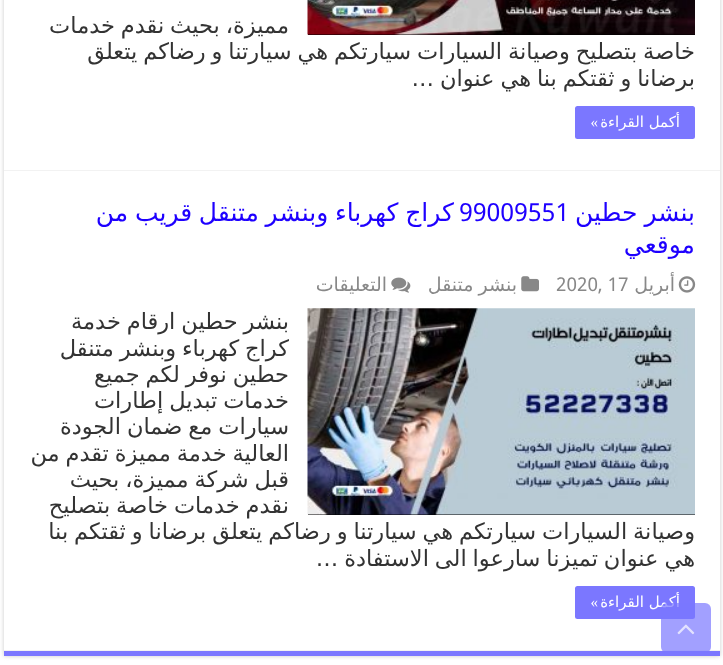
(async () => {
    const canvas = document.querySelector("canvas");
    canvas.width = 723;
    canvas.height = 665;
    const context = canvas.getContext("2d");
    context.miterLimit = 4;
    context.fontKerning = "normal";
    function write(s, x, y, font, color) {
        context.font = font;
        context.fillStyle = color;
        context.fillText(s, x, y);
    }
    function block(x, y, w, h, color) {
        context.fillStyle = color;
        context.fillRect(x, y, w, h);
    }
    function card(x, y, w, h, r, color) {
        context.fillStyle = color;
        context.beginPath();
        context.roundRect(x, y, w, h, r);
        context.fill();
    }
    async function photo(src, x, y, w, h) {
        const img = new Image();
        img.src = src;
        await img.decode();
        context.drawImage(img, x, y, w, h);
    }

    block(0, 0, 723, 665, "rgb(255, 255, 255)");
    context.save();
    context.beginPath();
    context.moveTo(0, 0);
    context.lineTo(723, 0);
    context.lineTo(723, 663);
    context.lineTo(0, 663);
    context.closePath();
    context.moveTo(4, -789);
    context.lineTo(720, -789);
    context.lineTo(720, 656);
    context.lineTo(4, 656);
    context.closePath();
    context.clip("evenodd");
    context.fillStyle = "rgb(202, 202, 202)";
    context.filter = "blur(2px)";
    context.beginPath();
    context.rect(4, -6, 716, 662);
    context.fill();
    context.filter = "none";
    context.restore();
    block(4, 651, 716, 5, "rgb(123, 119, 255)");
    block(4, 170, 716, 1, "rgb(242, 242, 242)");
    block(308, 34, 387, 1, "rgb(0, 0, 0)");
    await photo("media/1.png", 307, 0, 388, 35);
    context.wordSpacing = "-1.25px";
    context.direction = "rtl";
    write("مميزة، بحيث نقدم خدمات", 289, 33, "22.5px DejaVu Sans", "rgb(51, 51, 51)");
    write("خاصة بتصليح وصيانة السيارات سيارتكم هي سيارتنا و رضاكم يتعلق", 695, 59, "22.5px DejaVu Sans", "rgb(51, 51, 51)");
    write("برضانا و ثقتكم بنا هي عنوان …", 695, 86, "22.5px DejaVu Sans", "rgb(51, 51, 51)");
    card(575, 106, 120, 33, 2.5, "rgb(123, 119, 255)");
    context.wordSpacing = "0px";
    write("أكمل القراءة", 680, 127, "15px DejaVu Sans", "rgb(255, 255, 255)");
    write("»", 598, 127, "15px Liberation Serif", "rgb(255, 255, 255)");
    block(4, 650, 716, 1, "rgb(242, 242, 242)");
    context.wordSpacing = "-1px";
    write("بنشر حطين", 695, 221, "25px DejaVu Sans", "rgb(30, 0, 255)");
    context.wordSpacing = "0px";
    context.direction = "ltr";
    write("99009551", 459, 221, "25px Droid Sans", "rgb(30, 0, 255)");
    context.wordSpacing = "-1.25px";
    context.direction = "rtl";
    write("كراج كهرباء وبنشر متنقل قريب من", 454, 221, "25px DejaVu Sans", "rgb(30, 0, 255)");
    context.wordSpacing = "0px";
    write("موقعي", 695, 253, "25px DejaVu Sans", "rgb(30, 0, 255)");
    await photo("media/2.png", 678, 276, 18, 17);
    write("أبريل", 675, 291, "19px DejaVu Sans", "rgb(136, 136, 136)");
    context.direction = "ltr";
    write("2020, 17", 556, 291, "19px Droid Sans", "rgb(136, 136, 136)");
    await photo("media/3.png", 521, 276, 18, 16);
    context.wordSpacing = "-1px";
    context.direction = "rtl";
    write("بنشر متنقل", 517, 291, "19px DejaVu Sans", "rgb(136, 136, 136)");
    await photo("media/4.png", 391, 277, 20, 16);
    context.wordSpacing = "0px";
    write("التعليقات", 387, 291, "19px DejaVu Sans", "rgb(136, 136, 136)");
    block(308, 514, 387, 1, "rgb(0, 0, 0)");
    await photo("media/5.png", 307, 308, 388, 207);
    context.wordSpacing = "-1.25px";
    write("بنشر حطين ارقام خدمة", 289, 329, "22.5px DejaVu Sans", "rgb(51, 51, 51)");
    write("كراج كهرباء وبنشر متنقل", 289, 356, "22.5px DejaVu Sans", "rgb(51, 51, 51)");
    write("حطين نوفر لكم جميع", 289, 382, "22.5px DejaVu Sans", "rgb(51, 51, 51)");
    write("خدمات تبديل إطارات", 289, 408, "22.5px DejaVu Sans", "rgb(51, 51, 51)");
    write("سيارات مع ضمان الجودة", 289, 434, "22.5px DejaVu Sans", "rgb(51, 51, 51)");
    write("العالية خدمة مميزة تقدم من", 289, 461, "22.5px DejaVu Sans", "rgb(51, 51, 51)");
    write("قبل شركة مميزة، بحيث", 289, 487, "22.5px DejaVu Sans", "rgb(51, 51, 51)");
    write("نقدم خدمات خاصة بتصليح", 289, 513, "22.5px DejaVu Sans", "rgb(51, 51, 51)");
    write("وصيانة السيارات سيارتكم هي سيارتنا و رضاكم يتعلق برضانا و ثقتكم بنا", 695, 539, "22.5px DejaVu Sans", "rgb(51, 51, 51)");
    write("هي عنوان تميزنا سارعوا الى الاستفادة …", 695, 566, "22.5px DejaVu Sans", "rgb(51, 51, 51)");
    card(575, 586, 120, 33, 2.5, "rgb(123, 119, 255)");
    context.wordSpacing = "0px";
    write("أكمل القراءة", 680, 607, "15px DejaVu Sans", "rgb(255, 255, 255)");
    write("»", 598, 607, "15px Liberation Serif", "rgb(255, 255, 255)");
    card(661, 603, 50, 50, 6, "rgba(123, 119, 255, 0.7)");
    await photo("media/6.png", 677, 624, 18, 11);
})();
